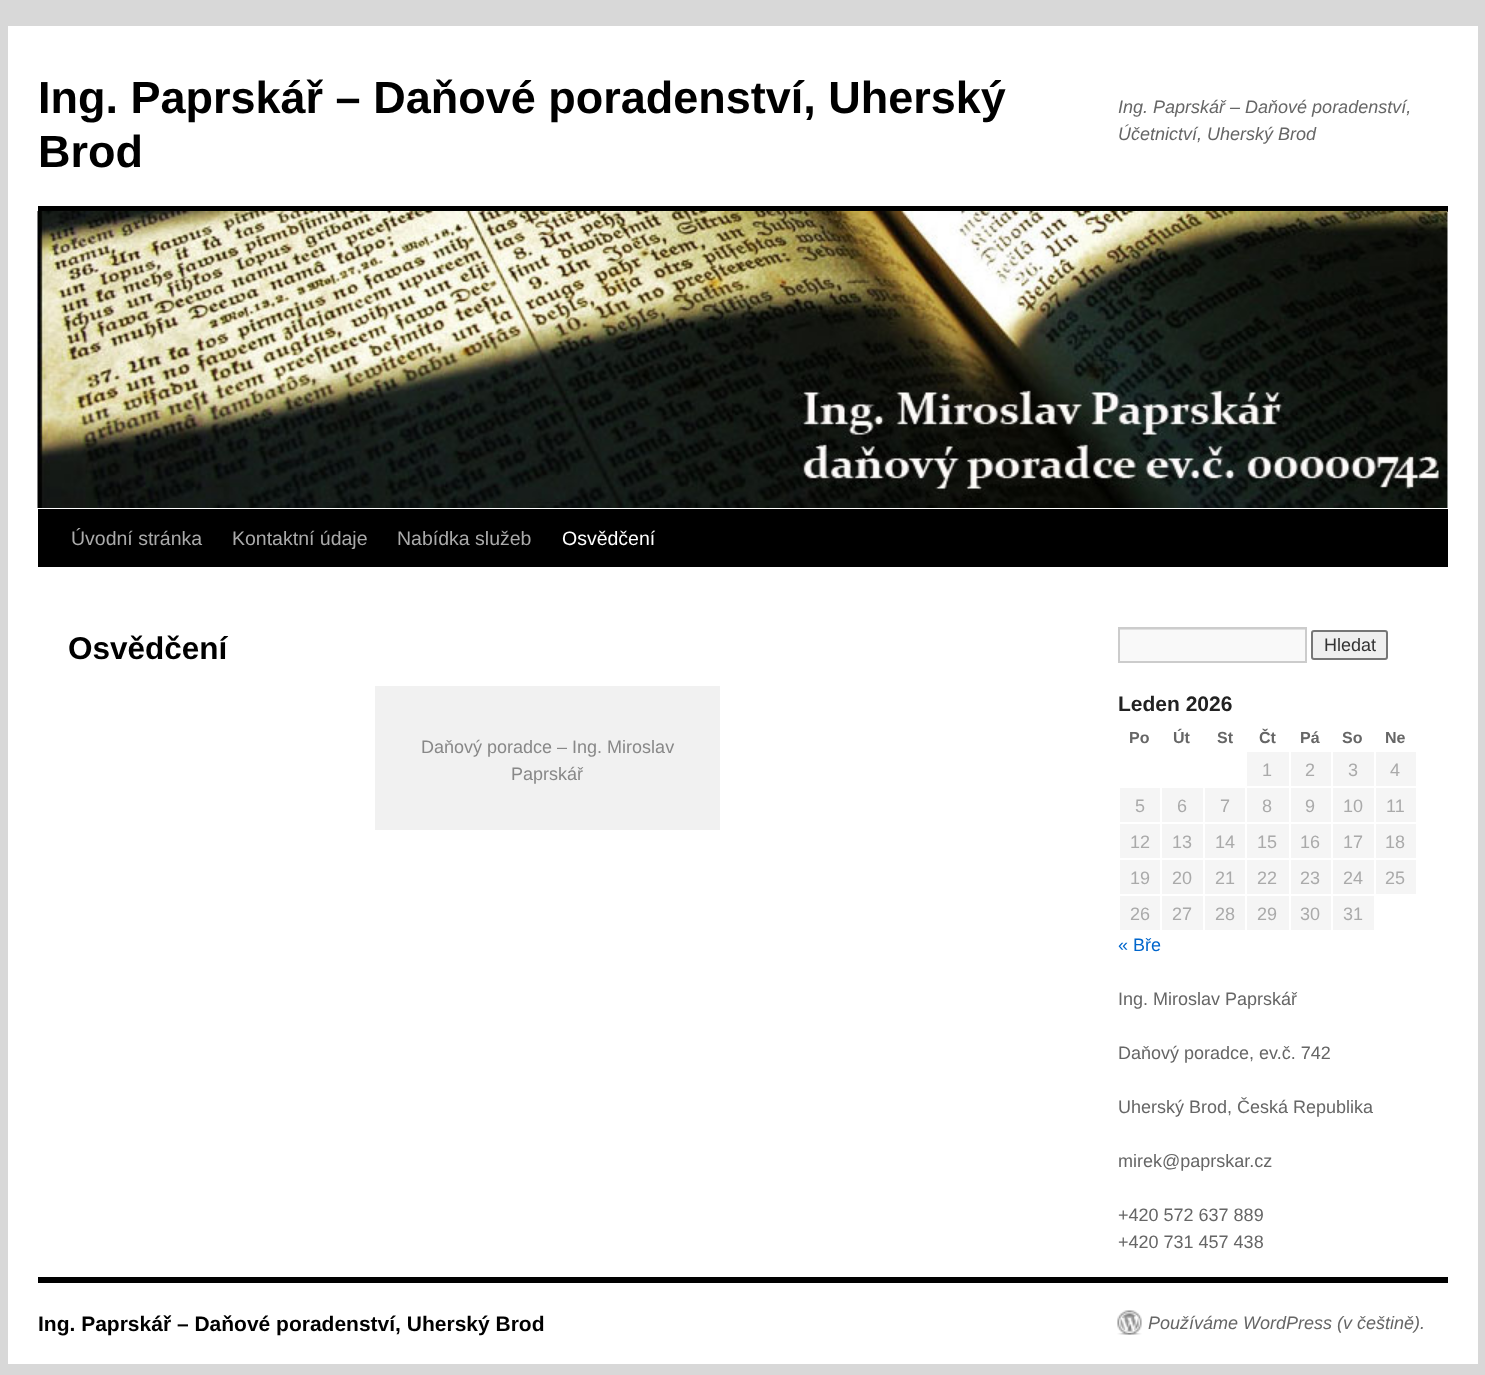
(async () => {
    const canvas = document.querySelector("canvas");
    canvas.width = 1485;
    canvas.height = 1375;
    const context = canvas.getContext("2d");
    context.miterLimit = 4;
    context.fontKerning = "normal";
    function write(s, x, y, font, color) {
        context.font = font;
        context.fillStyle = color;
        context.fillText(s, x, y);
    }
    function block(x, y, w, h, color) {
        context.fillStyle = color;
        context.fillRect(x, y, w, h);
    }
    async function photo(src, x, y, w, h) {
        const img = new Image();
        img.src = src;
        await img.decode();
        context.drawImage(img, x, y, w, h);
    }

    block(0, 0, 1485, 1375, "rgb(216, 216, 216)");
    block(8, 26, 1470, 1338, "rgb(255, 255, 255)");
    write("Ing. Paprskář – Daňové poradenství, Uherský", 38, 113, "bold 45px Liberation Sans", "rgb(0, 0, 0)");
    write("Brod", 38, 167, "bold 45px Liberation Sans", "rgb(0, 0, 0)");
    write("Ing. Paprskář – Daňové poradenství,", 1118, 113, "italic 18px Liberation Sans", "rgb(102, 102, 102)");
    write("Účetnictví, Uherský Brod", 1118, 140, "italic 18px Liberation Sans", "rgb(102, 102, 102)");
    block(38, 206, 1410, 6, "rgb(0, 0, 0)");
    block(38, 509, 1410, 58, "rgb(0, 0, 0)");
    await photo("media/1.png", 37, 211, 1411, 297);
    write("Úvodní stránka", 71, 545, "19.5px Liberation Sans", "rgb(170, 170, 170)");
    write("Kontaktní údaje", 232, 545, "19.5px Liberation Sans", "rgb(170, 170, 170)");
    write("Nabídka služeb", 397, 545, "19.5px Liberation Sans", "rgb(170, 170, 170)");
    write("Osvědčení", 562, 545, "19.5px Liberation Sans", "rgb(255, 255, 255)");
    write("Osvědčení", 68, 659, "bold 31.5px Liberation Sans", "rgb(0, 0, 0)");
    block(375, 686, 345, 144, "rgb(241, 241, 241)");
    write("Daňový poradce – Ing. Miroslav", 421, 753, "18px Liberation Sans", "rgb(136, 136, 136)");
    write("Paprskář", 511, 780, "18px Liberation Sans", "rgb(136, 136, 136)");
    block(1120, 630, 185, 31, "rgb(249, 249, 249)");
    context.save();
    context.beginPath();
    context.rect(1119, 629, 186, 33);
    context.clip();
    context.fillStyle = "rgb(224, 224, 224)";
    context.beginPath();
    context.moveTo(970, 480);
    context.lineTo(1454, 480);
    context.lineTo(1454, 810);
    context.lineTo(970, 810);
    context.closePath();
    context.moveTo(1120, 630);
    context.lineTo(1306, 630);
    context.lineTo(1306, 663);
    context.lineTo(1120, 663);
    context.closePath();
    context.fill("evenodd");
    context.restore();
    context.strokeStyle = "rgb(204, 204, 204)";
    context.lineWidth = 2;
    context.strokeRect(1119, 628, 187, 34);
    context.fillStyle = "rgb(239, 239, 239)";
    context.beginPath();
    context.roundRect(1312, 631, 75, 28, 2);
    context.fill();
    context.strokeStyle = "rgb(118, 118, 118)";
    context.stroke();
    write("Hledat", 1324, 651, "18px Liberation Sans", "rgb(51, 51, 51)");
    write("Leden 2026", 1118, 711, "bold 21px Liberation Sans", "rgb(34, 34, 34)");
    write("Po", 1129, 743, "bold 16px Liberation Sans", "rgb(102, 102, 102)");
    write("Út", 1173, 743, "bold 16px Liberation Sans", "rgb(102, 102, 102)");
    write("St", 1217, 743, "bold 16px Liberation Sans", "rgb(102, 102, 102)");
    write("Čt", 1259, 743, "bold 16px Liberation Sans", "rgb(102, 102, 102)");
    write("Pá", 1300, 743, "bold 16px Liberation Sans", "rgb(102, 102, 102)");
    write("So", 1342, 743, "bold 16px Liberation Sans", "rgb(102, 102, 102)");
    write("Ne", 1385, 743, "bold 16px Liberation Sans", "rgb(102, 102, 102)");
    block(1247, 752, 42, 34, "rgb(245, 245, 245)");
    write("1", 1262, 776, "18px Liberation Sans", "rgb(170, 170, 170)");
    block(1291, 752, 40, 34, "rgb(245, 245, 245)");
    write("2", 1305, 776, "18px Liberation Sans", "rgb(170, 170, 170)");
    block(1333, 752, 41, 34, "rgb(245, 245, 245)");
    write("3", 1348, 776, "18px Liberation Sans", "rgb(170, 170, 170)");
    block(1376, 752, 40, 34, "rgb(245, 245, 245)");
    write("4", 1390, 776, "18px Liberation Sans", "rgb(170, 170, 170)");
    block(1120, 788, 40, 34, "rgb(245, 245, 245)");
    write("5", 1135, 812, "18px Liberation Sans", "rgb(170, 170, 170)");
    block(1162, 788, 41, 34, "rgb(245, 245, 245)");
    write("6", 1177, 812, "18px Liberation Sans", "rgb(170, 170, 170)");
    block(1205, 788, 40, 34, "rgb(245, 245, 245)");
    write("7", 1220, 812, "18px Liberation Sans", "rgb(170, 170, 170)");
    block(1247, 788, 42, 34, "rgb(245, 245, 245)");
    write("8", 1262, 812, "18px Liberation Sans", "rgb(170, 170, 170)");
    block(1291, 788, 40, 34, "rgb(245, 245, 245)");
    write("9", 1305, 812, "18px Liberation Sans", "rgb(170, 170, 170)");
    block(1333, 788, 41, 34, "rgb(245, 245, 245)");
    write("10", 1343, 812, "18px Liberation Sans", "rgb(170, 170, 170)");
    block(1376, 788, 40, 34, "rgb(245, 245, 245)");
    write("11", 1386, 812, "18px Liberation Sans", "rgb(170, 170, 170)");
    block(1120, 824, 40, 34, "rgb(245, 245, 245)");
    write("12", 1130, 848, "18px Liberation Sans", "rgb(170, 170, 170)");
    block(1162, 824, 41, 34, "rgb(245, 245, 245)");
    write("13", 1172, 848, "18px Liberation Sans", "rgb(170, 170, 170)");
    block(1205, 824, 40, 34, "rgb(245, 245, 245)");
    write("14", 1215, 848, "18px Liberation Sans", "rgb(170, 170, 170)");
    block(1247, 824, 42, 34, "rgb(245, 245, 245)");
    write("15", 1257, 848, "18px Liberation Sans", "rgb(170, 170, 170)");
    block(1291, 824, 40, 34, "rgb(245, 245, 245)");
    write("16", 1300, 848, "18px Liberation Sans", "rgb(170, 170, 170)");
    block(1333, 824, 41, 34, "rgb(245, 245, 245)");
    write("17", 1343, 848, "18px Liberation Sans", "rgb(170, 170, 170)");
    block(1376, 824, 40, 34, "rgb(245, 245, 245)");
    write("18", 1385, 848, "18px Liberation Sans", "rgb(170, 170, 170)");
    block(1120, 860, 40, 34, "rgb(245, 245, 245)");
    write("19", 1130, 884, "18px Liberation Sans", "rgb(170, 170, 170)");
    block(1162, 860, 41, 34, "rgb(245, 245, 245)");
    write("20", 1172, 884, "18px Liberation Sans", "rgb(170, 170, 170)");
    block(1205, 860, 40, 34, "rgb(245, 245, 245)");
    write("21", 1215, 884, "18px Liberation Sans", "rgb(170, 170, 170)");
    block(1247, 860, 42, 34, "rgb(245, 245, 245)");
    write("22", 1257, 884, "18px Liberation Sans", "rgb(170, 170, 170)");
    block(1291, 860, 40, 34, "rgb(245, 245, 245)");
    write("23", 1300, 884, "18px Liberation Sans", "rgb(170, 170, 170)");
    block(1333, 860, 41, 34, "rgb(245, 245, 245)");
    write("24", 1343, 884, "18px Liberation Sans", "rgb(170, 170, 170)");
    block(1376, 860, 40, 34, "rgb(245, 245, 245)");
    write("25", 1385, 884, "18px Liberation Sans", "rgb(170, 170, 170)");
    block(1120, 896, 40, 34, "rgb(245, 245, 245)");
    write("26", 1130, 920, "18px Liberation Sans", "rgb(170, 170, 170)");
    block(1162, 896, 41, 34, "rgb(245, 245, 245)");
    write("27", 1172, 920, "18px Liberation Sans", "rgb(170, 170, 170)");
    block(1205, 896, 40, 34, "rgb(245, 245, 245)");
    write("28", 1215, 920, "18px Liberation Sans", "rgb(170, 170, 170)");
    block(1247, 896, 42, 34, "rgb(245, 245, 245)");
    write("29", 1257, 920, "18px Liberation Sans", "rgb(170, 170, 170)");
    block(1291, 896, 40, 34, "rgb(245, 245, 245)");
    write("30", 1300, 920, "18px Liberation Sans", "rgb(170, 170, 170)");
    block(1333, 896, 41, 34, "rgb(245, 245, 245)");
    write("31", 1343, 920, "18px Liberation Sans", "rgb(170, 170, 170)");
    write("« Bře", 1118, 951, "18px Liberation Sans", "rgb(0, 102, 204)");
    write("Ing. Miroslav Paprskář", 1118, 1005, "18px Liberation Sans", "rgb(102, 102, 102)");
    write("Daňový poradce, ev.č. 742", 1118, 1059, "18px Liberation Sans", "rgb(102, 102, 102)");
    write("Uherský Brod, Česká Republika", 1118, 1113, "18px Liberation Sans", "rgb(102, 102, 102)");
    write("mirek@paprskar.cz", 1118, 1167, "18px Liberation Sans", "rgb(102, 102, 102)");
    write("+420 572 637 889", 1118, 1221, "18px Liberation Sans", "rgb(102, 102, 102)");
    write("+420 731 457 438", 1118, 1248, "18px Liberation Sans", "rgb(102, 102, 102)");
    block(38, 1277, 1410, 6, "rgb(0, 0, 0)");
    write("Ing. Paprskář – Daňové poradenství, Uherský Brod", 38, 1331, "bold 21px Liberation Sans", "rgb(0, 0, 0)");
    await photo("media/2.png", 1117, 1310, 25, 25);
    write("Používáme WordPress (v češtině).", 1148, 1329, "italic 18px Liberation Sans", "rgb(102, 102, 102)");
})();
